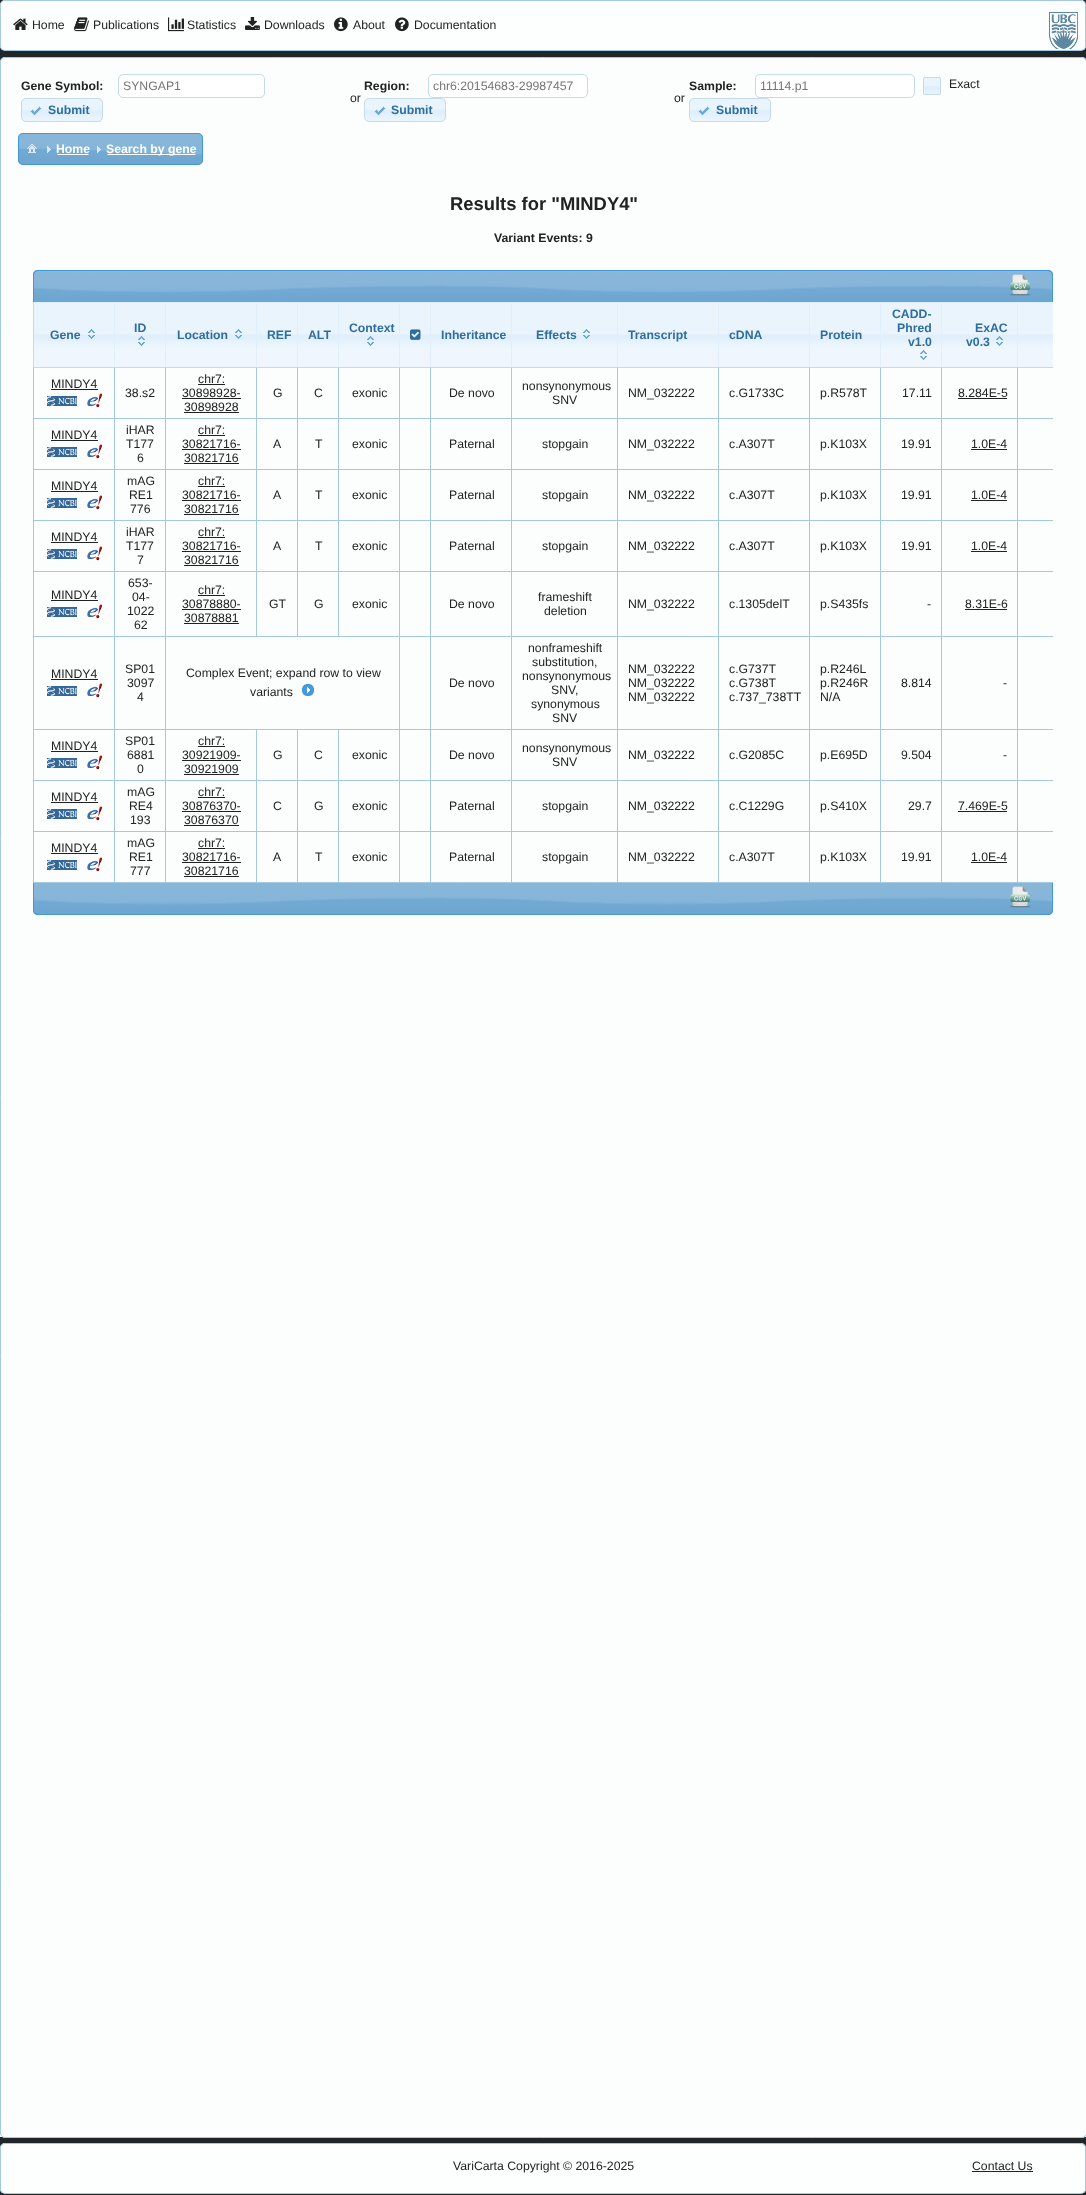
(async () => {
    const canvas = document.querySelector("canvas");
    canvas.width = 1086;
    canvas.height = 2195;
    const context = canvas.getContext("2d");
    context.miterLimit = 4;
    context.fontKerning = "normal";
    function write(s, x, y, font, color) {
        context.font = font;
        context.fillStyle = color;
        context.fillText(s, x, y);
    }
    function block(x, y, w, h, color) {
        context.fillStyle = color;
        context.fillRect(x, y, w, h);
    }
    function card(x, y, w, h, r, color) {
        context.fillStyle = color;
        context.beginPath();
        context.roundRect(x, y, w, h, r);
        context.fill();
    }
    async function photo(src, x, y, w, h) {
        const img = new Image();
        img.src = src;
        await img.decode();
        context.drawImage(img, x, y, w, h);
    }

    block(0, 0, 1086, 2195, "rgb(32, 39, 42)");
    await photo("media/1.png", 0, 0, 1086, 50);
    context.beginPath();
    context.roundRect(0.5, 0.5, 1085, 50, 4.5);
    context.strokeStyle = "rgb(166, 201, 226)";
    context.stroke();
    await photo("media/2.png", 13, 18, 15, 12);
    write("Home", 32, 29, "12.25px Liberation Sans", "rgb(34, 34, 34)");
    await photo("media/3.png", 74, 17, 15, 15);
    write("Publications", 93, 29, "12.25px Liberation Sans", "rgb(34, 34, 34)");
    await photo("media/4.png", 168, 17, 16, 15);
    write("Statistics", 187, 29, "12.25px Liberation Sans", "rgb(34, 34, 34)");
    await photo("media/5.png", 245, 17, 15, 13);
    write("Downloads", 264, 29, "12.25px Liberation Sans", "rgb(34, 34, 34)");
    await photo("media/6.png", 334, 17, 14, 15);
    write("About", 353, 29, "12.25px Liberation Sans", "rgb(34, 34, 34)");
    await photo("media/7.png", 395, 17, 14, 15);
    write("Documentation", 414, 29, "12.25px Liberation Sans", "rgb(34, 34, 34)");
    await photo("media/8.png", 1049, 12, 29, 37);
    card(0, 57, 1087, 2081, 5, "rgb(252, 253, 253)");
    block(0, 2133, 1086, 4, "rgb(253, 254, 254)");
    context.beginPath();
    context.roundRect(0.5, 57.5, 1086, 2080, 4.5);
    context.stroke();
    write("Gene Symbol:", 21, 90, "bold 12.25px Liberation Sans", "rgb(34, 34, 34)");
    context.fillStyle = "rgb(255, 255, 255)";
    context.beginPath();
    context.roundRect(118.5, 74.5, 146, 23, 4.5);
    context.fill();
    context.strokeStyle = "rgb(197, 219, 236)";
    context.stroke();
    write("SYNGAP1", 123, 90, "12.25px Liberation Sans", "rgb(117, 117, 117)");
    await photo("media/9.png", 21, 98, 82, 24);
    context.beginPath();
    context.roundRect(21.5, 98.5, 81, 23, 4.5);
    context.stroke();
    await photo("media/10.png", 30, 106, 12, 9);
    write("Submit", 48, 114, "bold 12.25px Liberation Sans", "rgb(46, 110, 158)");
    write("or", 350, 102, "12.25px Liberation Sans", "rgb(34, 34, 34)");
    write("Region:", 364, 90, "bold 12.25px Liberation Sans", "rgb(34, 34, 34)");
    context.fillStyle = "rgb(255, 255, 255)";
    context.beginPath();
    context.roundRect(428.5, 74.5, 159, 23, 4.5);
    context.fill();
    context.stroke();
    write("chr6:20154683-29987457", 433, 90, "12.25px Liberation Sans", "rgb(117, 117, 117)");
    await photo("media/11.png", 364, 98, 82, 24);
    context.beginPath();
    context.roundRect(364.5, 98.5, 81, 23, 4.5);
    context.stroke();
    await photo("media/10.png", 374, 106, 12, 9);
    write("Submit", 391, 114, "bold 12.25px Liberation Sans", "rgb(46, 110, 158)");
    write("or", 674, 102, "12.25px Liberation Sans", "rgb(34, 34, 34)");
    write("Sample:", 689, 90, "bold 12.25px Liberation Sans", "rgb(34, 34, 34)");
    context.fillStyle = "rgb(255, 255, 255)";
    context.beginPath();
    context.roundRect(755.5, 74.5, 159, 23, 4.5);
    context.fill();
    context.stroke();
    write("11114.p1", 760, 90, "12.25px Liberation Sans", "rgb(117, 117, 117)");
    await photo("media/12.png", 923, 77, 18, 18);
    context.beginPath();
    context.roundRect(923.5, 77.5, 17, 17, 1.5);
    context.stroke();
    write("Exact", 949, 88, "12.25px Liberation Sans", "rgb(34, 34, 34)");
    await photo("media/9.png", 689, 98, 82, 24);
    context.beginPath();
    context.roundRect(689.5, 98.5, 81, 23, 4.5);
    context.stroke();
    await photo("media/10.png", 698, 106, 12, 9);
    write("Submit", 716, 114, "bold 12.25px Liberation Sans", "rgb(46, 110, 158)");
    await photo("media/13.png", 18, 133, 185, 32);
    context.beginPath();
    context.roundRect(18.5, 133.5, 184, 31, 4.5);
    context.strokeStyle = "rgb(66, 151, 215)";
    context.stroke();
    await photo("media/14.png", 27, 144, 10, 9);
    await photo("media/15.png", 27, 144, 10, 6);
    await photo("media/16.png", 47, 146, 4, 7);
    write("Home", 56, 153, "bold 12.25px Liberation Sans", "rgb(255, 255, 255)");
    context.save();
    context.beginPath();
    context.roundRect(56, 142, 34, 14, 5);
    context.clip();
    block(56, 154, 34, 1, "rgb(255, 255, 255)");
    context.restore();
    await photo("media/17.png", 97, 146, 4, 7);
    context.save();
    context.beginPath();
    context.roundRect(106, 142, 91, 14, 5);
    context.clip();
    block(106, 154, 91, 1, "rgb(255, 255, 255)");
    context.restore();
    write("Search by gene", 106, 153, "bold 12.25px Liberation Sans", "rgb(255, 255, 255)");
    write("Results for \"MINDY4\"", 450, 210, "bold 18.4px Liberation Sans", "rgb(34, 34, 34)");
    write("Variant Events: 9", 494, 242, "bold 12.25px Liberation Sans", "rgb(34, 34, 34)");
    await photo("media/18.png", 33, 270, 1020, 32);
    context.fillStyle = "rgb(66, 151, 215)";
    context.beginPath();
    context.moveTo(38, 270);
    context.lineTo(1048, 270);
    context.bezierCurveTo(1051, 270, 1053, 272, 1053, 275);
    context.lineTo(1053, 302);
    context.lineTo(33, 302);
    context.lineTo(33, 275);
    context.bezierCurveTo(33, 272, 35, 270, 38, 270);
    context.closePath();
    context.moveTo(38, 271);
    context.lineTo(1048, 271);
    context.bezierCurveTo(1050, 271, 1052, 273, 1052, 275);
    context.lineTo(1052, 302);
    context.lineTo(34, 302);
    context.lineTo(34, 275);
    context.bezierCurveTo(34, 273, 36, 271, 38, 271);
    context.closePath();
    context.fill("evenodd");
    await photo("media/19.png", 1009, 274, 22, 22);
    block(33, 882, 1020, 1, "rgb(166, 201, 226)");
    block(33, 367, 1, 516, "rgb(166, 201, 226)");
    block(33, 418, 1020, 1, "rgb(166, 201, 226)");
    block(33, 469, 1020, 1, "rgb(166, 201, 226)");
    block(33, 520, 1020, 1, "rgb(166, 201, 226)");
    block(33, 571, 1020, 1, "rgb(166, 201, 226)");
    block(33, 636, 1020, 1, "rgb(166, 201, 226)");
    block(256, 367, 1, 270, "rgb(166, 201, 226)");
    block(297, 367, 1, 270, "rgb(166, 201, 226)");
    block(338, 367, 1, 270, "rgb(166, 201, 226)");
    block(33, 729, 1020, 1, "rgb(166, 201, 226)");
    block(33, 780, 1020, 1, "rgb(166, 201, 226)");
    block(33, 831, 1020, 1, "rgb(166, 201, 226)");
    block(114, 367, 1, 516, "rgb(166, 201, 226)");
    block(165, 367, 1, 516, "rgb(166, 201, 226)");
    block(399, 367, 1, 516, "rgb(166, 201, 226)");
    block(1017, 367, 1, 516, "rgb(166, 201, 226)");
    block(430, 367, 1, 516, "rgb(166, 201, 226)");
    block(511, 367, 1, 516, "rgb(166, 201, 226)");
    block(617, 367, 1, 516, "rgb(166, 201, 226)");
    block(718, 367, 1, 516, "rgb(166, 201, 226)");
    block(809, 367, 1, 516, "rgb(166, 201, 226)");
    block(880, 367, 1, 516, "rgb(166, 201, 226)");
    block(941, 367, 1, 516, "rgb(166, 201, 226)");
    block(33, 367, 1020, 1, "rgb(197, 219, 236)");
    block(1018, 302, 35, 1, "rgb(223, 239, 252)");
    await photo("media/20.png", 1018, 303, 35, 64);
    block(33, 302, 1, 66, "rgb(197, 219, 236)");
    block(34, 302, 984, 65, "rgb(223, 239, 252)");
    await photo("media/21.png", 34, 303, 80, 64);
    write("Gene", 50, 339, "bold 12.25px Liberation Sans", "rgb(46, 110, 158)");
    await photo("media/22.png", 88, 329, 7, 10);
    await photo("media/23.png", 115, 303, 50, 64);
    write("ID", 134, 332, "bold 12.25px Liberation Sans", "rgb(46, 110, 158)");
    await photo("media/24.png", 138, 336, 7, 10);
    await photo("media/25.png", 166, 303, 90, 64);
    write("Location", 177, 339, "bold 12.25px Liberation Sans", "rgb(46, 110, 158)");
    await photo("media/22.png", 235, 329, 7, 10);
    await photo("media/26.png", 257, 303, 40, 64);
    write("REF", 267, 339, "bold 12.25px Liberation Sans", "rgb(46, 110, 158)");
    await photo("media/26.png", 298, 303, 40, 64);
    write("ALT", 308, 339, "bold 12.25px Liberation Sans", "rgb(46, 110, 158)");
    await photo("media/27.png", 339, 303, 60, 64);
    write("Context", 349, 332, "bold 12.25px Liberation Sans", "rgb(46, 110, 158)");
    await photo("media/24.png", 367, 336, 7, 10);
    await photo("media/28.png", 400, 303, 30, 64);
    await photo("media/29.png", 410, 329, 11, 11);
    await photo("media/21.png", 431, 303, 80, 64);
    write("Inheritance", 441, 339, "bold 12.25px Liberation Sans", "rgb(46, 110, 158)");
    await photo("media/30.png", 512, 303, 105, 64);
    write("Effects", 536, 339, "bold 12.25px Liberation Sans", "rgb(46, 110, 158)");
    await photo("media/22.png", 583, 329, 7, 10);
    await photo("media/31.png", 618, 303, 100, 64);
    write("Transcript", 628, 339, "bold 12.25px Liberation Sans", "rgb(46, 110, 158)");
    await photo("media/25.png", 719, 303, 90, 64);
    write("cDNA", 729, 339, "bold 12.25px Liberation Sans", "rgb(46, 110, 158)");
    await photo("media/32.png", 810, 303, 70, 64);
    write("Protein", 820, 339, "bold 12.25px Liberation Sans", "rgb(46, 110, 158)");
    await photo("media/27.png", 881, 303, 60, 64);
    write("CADD-", 892, 318, "bold 12.25px Liberation Sans", "rgb(46, 110, 158)");
    write("Phred", 897, 332, "bold 12.25px Liberation Sans", "rgb(46, 110, 158)");
    write("v1.0", 908, 346, "bold 12.25px Liberation Sans", "rgb(46, 110, 158)");
    await photo("media/33.png", 920, 350, 7, 10);
    await photo("media/34.png", 942, 303, 75, 64);
    write("ExAC", 975, 332, "bold 12.25px Liberation Sans", "rgb(46, 110, 158)");
    write("v0.3", 966, 346, "bold 12.25px Liberation Sans", "rgb(46, 110, 158)");
    await photo("media/24.png", 996, 336, 7, 10);
    write("MINDY4", 51, 388, "12.25px Liberation Sans", "rgb(34, 34, 34)");
    block(51, 389, 47, 1, "rgb(34, 34, 34)");
    await photo("media/35.png", 47, 396, 30, 10);
    await photo("media/36.png", 87, 393, 15, 15);
    write("38.s2", 125, 397, "12.25px Liberation Sans", "rgb(34, 34, 34)");
    write("chr7:", 198, 383, "12.25px Liberation Sans", "rgb(34, 34, 34)");
    block(198, 384, 27, 1, "rgb(34, 34, 34)");
    write("30898928-", 182, 397, "12.25px Liberation Sans", "rgb(34, 34, 34)");
    block(182, 398, 59, 1, "rgb(34, 34, 34)");
    write("30898928", 184, 411, "12.25px Liberation Sans", "rgb(34, 34, 34)");
    block(184, 412, 55, 1, "rgb(34, 34, 34)");
    write("G", 273, 397, "12.25px Liberation Sans", "rgb(34, 34, 34)");
    write("C", 314, 397, "12.25px Liberation Sans", "rgb(34, 34, 34)");
    write("exonic", 352, 397, "12.25px Liberation Sans", "rgb(34, 34, 34)");
    write("De novo", 449, 397, "12.25px Liberation Sans", "rgb(34, 34, 34)");
    write("nonsynonymous", 522, 390, "12.25px Liberation Sans", "rgb(34, 34, 34)");
    write("SNV", 552, 404, "12.25px Liberation Sans", "rgb(34, 34, 34)");
    write("NM_032222", 628, 397, "12.25px Liberation Sans", "rgb(34, 34, 34)");
    write("c.G1733C", 729, 397, "12.25px Liberation Sans", "rgb(34, 34, 34)");
    write("p.R578T", 820, 397, "12.25px Liberation Sans", "rgb(34, 34, 34)");
    write("17.11", 902, 397, "12.25px Liberation Sans", "rgb(34, 34, 34)");
    write("8.284E-5", 958, 397, "12.25px Liberation Sans", "rgb(34, 34, 34)");
    block(958, 398, 49, 1, "rgb(34, 34, 34)");
    write("MINDY4", 51, 439, "12.25px Liberation Sans", "rgb(34, 34, 34)");
    block(51, 440, 47, 1, "rgb(34, 34, 34)");
    await photo("media/35.png", 47, 447, 30, 10);
    await photo("media/36.png", 87, 444, 15, 15);
    write("iHAR", 126, 434, "12.25px Liberation Sans", "rgb(34, 34, 34)");
    write("T177", 126, 448, "12.25px Liberation Sans", "rgb(34, 34, 34)");
    write("6", 137, 462, "12.25px Liberation Sans", "rgb(34, 34, 34)");
    write("chr7:", 198, 434, "12.25px Liberation Sans", "rgb(34, 34, 34)");
    block(198, 435, 27, 1, "rgb(34, 34, 34)");
    write("30821716-", 182, 448, "12.25px Liberation Sans", "rgb(34, 34, 34)");
    block(182, 449, 59, 1, "rgb(34, 34, 34)");
    write("30821716", 184, 462, "12.25px Liberation Sans", "rgb(34, 34, 34)");
    block(184, 463, 55, 1, "rgb(34, 34, 34)");
    write("A", 273, 448, "12.25px Liberation Sans", "rgb(34, 34, 34)");
    write("T", 315, 448, "12.25px Liberation Sans", "rgb(34, 34, 34)");
    write("exonic", 352, 448, "12.25px Liberation Sans", "rgb(34, 34, 34)");
    write("Paternal", 449, 448, "12.25px Liberation Sans", "rgb(34, 34, 34)");
    write("stopgain", 542, 448, "12.25px Liberation Sans", "rgb(34, 34, 34)");
    write("NM_032222", 628, 448, "12.25px Liberation Sans", "rgb(34, 34, 34)");
    write("c.A307T", 729, 448, "12.25px Liberation Sans", "rgb(34, 34, 34)");
    write("p.K103X", 820, 448, "12.25px Liberation Sans", "rgb(34, 34, 34)");
    write("19.91", 901, 448, "12.25px Liberation Sans", "rgb(34, 34, 34)");
    write("1.0E-4", 971, 448, "12.25px Liberation Sans", "rgb(34, 34, 34)");
    block(971, 449, 36, 1, "rgb(34, 34, 34)");
    write("MINDY4", 51, 490, "12.25px Liberation Sans", "rgb(34, 34, 34)");
    block(51, 491, 47, 1, "rgb(34, 34, 34)");
    await photo("media/35.png", 47, 498, 30, 10);
    await photo("media/36.png", 87, 495, 15, 15);
    write("mAG", 127, 485, "12.25px Liberation Sans", "rgb(34, 34, 34)");
    write("RE1", 129, 499, "12.25px Liberation Sans", "rgb(34, 34, 34)");
    write("776", 130, 513, "12.25px Liberation Sans", "rgb(34, 34, 34)");
    write("chr7:", 198, 485, "12.25px Liberation Sans", "rgb(34, 34, 34)");
    block(198, 486, 27, 1, "rgb(34, 34, 34)");
    write("30821716-", 182, 499, "12.25px Liberation Sans", "rgb(34, 34, 34)");
    block(182, 500, 59, 1, "rgb(34, 34, 34)");
    write("30821716", 184, 513, "12.25px Liberation Sans", "rgb(34, 34, 34)");
    block(184, 514, 55, 1, "rgb(34, 34, 34)");
    write("A", 273, 499, "12.25px Liberation Sans", "rgb(34, 34, 34)");
    write("T", 315, 499, "12.25px Liberation Sans", "rgb(34, 34, 34)");
    write("exonic", 352, 499, "12.25px Liberation Sans", "rgb(34, 34, 34)");
    write("Paternal", 449, 499, "12.25px Liberation Sans", "rgb(34, 34, 34)");
    write("stopgain", 542, 499, "12.25px Liberation Sans", "rgb(34, 34, 34)");
    write("NM_032222", 628, 499, "12.25px Liberation Sans", "rgb(34, 34, 34)");
    write("c.A307T", 729, 499, "12.25px Liberation Sans", "rgb(34, 34, 34)");
    write("p.K103X", 820, 499, "12.25px Liberation Sans", "rgb(34, 34, 34)");
    write("19.91", 901, 499, "12.25px Liberation Sans", "rgb(34, 34, 34)");
    write("1.0E-4", 971, 499, "12.25px Liberation Sans", "rgb(34, 34, 34)");
    block(971, 500, 36, 1, "rgb(34, 34, 34)");
    write("MINDY4", 51, 541, "12.25px Liberation Sans", "rgb(34, 34, 34)");
    block(51, 542, 47, 1, "rgb(34, 34, 34)");
    await photo("media/35.png", 47, 549, 30, 10);
    await photo("media/37.png", 87, 546, 15, 15);
    write("iHAR", 126, 536, "12.25px Liberation Sans", "rgb(34, 34, 34)");
    write("T177", 126, 550, "12.25px Liberation Sans", "rgb(34, 34, 34)");
    write("7", 137, 564, "12.25px Liberation Sans", "rgb(34, 34, 34)");
    write("chr7:", 198, 536, "12.25px Liberation Sans", "rgb(34, 34, 34)");
    block(198, 537, 27, 1, "rgb(34, 34, 34)");
    write("30821716-", 182, 550, "12.25px Liberation Sans", "rgb(34, 34, 34)");
    block(182, 551, 59, 1, "rgb(34, 34, 34)");
    write("30821716", 184, 564, "12.25px Liberation Sans", "rgb(34, 34, 34)");
    block(184, 565, 55, 1, "rgb(34, 34, 34)");
    write("A", 273, 550, "12.25px Liberation Sans", "rgb(34, 34, 34)");
    write("T", 315, 550, "12.25px Liberation Sans", "rgb(34, 34, 34)");
    write("exonic", 352, 550, "12.25px Liberation Sans", "rgb(34, 34, 34)");
    write("Paternal", 449, 550, "12.25px Liberation Sans", "rgb(34, 34, 34)");
    write("stopgain", 542, 550, "12.25px Liberation Sans", "rgb(34, 34, 34)");
    write("NM_032222", 628, 550, "12.25px Liberation Sans", "rgb(34, 34, 34)");
    write("c.A307T", 729, 550, "12.25px Liberation Sans", "rgb(34, 34, 34)");
    write("p.K103X", 820, 550, "12.25px Liberation Sans", "rgb(34, 34, 34)");
    write("19.91", 901, 550, "12.25px Liberation Sans", "rgb(34, 34, 34)");
    write("1.0E-4", 971, 550, "12.25px Liberation Sans", "rgb(34, 34, 34)");
    block(971, 551, 36, 1, "rgb(34, 34, 34)");
    write("MINDY4", 51, 599, "12.25px Liberation Sans", "rgb(34, 34, 34)");
    block(51, 600, 47, 1, "rgb(34, 34, 34)");
    await photo("media/35.png", 47, 607, 30, 10);
    await photo("media/36.png", 87, 604, 15, 15);
    write("653-", 128, 587, "12.25px Liberation Sans", "rgb(34, 34, 34)");
    write("04-", 132, 601, "12.25px Liberation Sans", "rgb(34, 34, 34)");
    write("1022", 127, 615, "12.25px Liberation Sans", "rgb(34, 34, 34)");
    write("62", 134, 629, "12.25px Liberation Sans", "rgb(34, 34, 34)");
    write("chr7:", 198, 594, "12.25px Liberation Sans", "rgb(34, 34, 34)");
    block(198, 595, 27, 1, "rgb(34, 34, 34)");
    write("30878880-", 182, 608, "12.25px Liberation Sans", "rgb(34, 34, 34)");
    block(182, 609, 59, 1, "rgb(34, 34, 34)");
    write("30878881", 184, 622, "12.25px Liberation Sans", "rgb(34, 34, 34)");
    block(184, 623, 55, 1, "rgb(34, 34, 34)");
    write("GT", 269, 608, "12.25px Liberation Sans", "rgb(34, 34, 34)");
    write("G", 314, 608, "12.25px Liberation Sans", "rgb(34, 34, 34)");
    write("exonic", 352, 608, "12.25px Liberation Sans", "rgb(34, 34, 34)");
    write("De novo", 449, 608, "12.25px Liberation Sans", "rgb(34, 34, 34)");
    write("frameshift", 538, 601, "12.25px Liberation Sans", "rgb(34, 34, 34)");
    write("deletion", 544, 615, "12.25px Liberation Sans", "rgb(34, 34, 34)");
    write("NM_032222", 628, 608, "12.25px Liberation Sans", "rgb(34, 34, 34)");
    write("c.1305delT", 729, 608, "12.25px Liberation Sans", "rgb(34, 34, 34)");
    write("p.S435fs", 820, 608, "12.25px Liberation Sans", "rgb(34, 34, 34)");
    write("-", 927, 608, "12.25px Liberation Sans", "rgb(34, 34, 34)");
    write("8.31E-6", 965, 608, "12.25px Liberation Sans", "rgb(34, 34, 34)");
    block(965, 609, 42, 1, "rgb(34, 34, 34)");
    write("MINDY4", 51, 678, "12.25px Liberation Sans", "rgb(34, 34, 34)");
    block(51, 679, 47, 1, "rgb(34, 34, 34)");
    await photo("media/35.png", 47, 686, 30, 10);
    await photo("media/36.png", 87, 683, 15, 15);
    write("SP01", 125, 673, "12.25px Liberation Sans", "rgb(34, 34, 34)");
    write("3097", 127, 687, "12.25px Liberation Sans", "rgb(34, 34, 34)");
    write("4", 137, 701, "12.25px Liberation Sans", "rgb(34, 34, 34)");
    write("Complex Event; expand row to view", 186, 677, "12.25px Liberation Sans", "rgb(34, 34, 34)");
    write("variants", 250, 696, "12.25px Liberation Sans", "rgb(34, 34, 34)");
    await photo("media/38.png", 302, 684, 12, 12);
    write("nonframeshift", 528, 652, "12.25px Liberation Sans", "rgb(34, 34, 34)");
    write("substitution,", 532, 666, "12.25px Liberation Sans", "rgb(34, 34, 34)");
    write("nonsynonymous", 522, 680, "12.25px Liberation Sans", "rgb(34, 34, 34)");
    write("SNV", 551, 694, "12.25px Liberation Sans", "rgb(34, 34, 34)");
    write(",", 575, 694, "12.25px Liberation Sans", "rgb(34, 34, 34)");
    write("synonymous", 531, 708, "12.25px Liberation Sans", "rgb(34, 34, 34)");
    write("SNV", 552, 722, "12.25px Liberation Sans", "rgb(34, 34, 34)");
    write("NM_032222", 628, 673, "12.25px Liberation Sans", "rgb(34, 34, 34)");
    write("NM_032222", 628, 687, "12.25px Liberation Sans", "rgb(34, 34, 34)");
    write("NM_032222", 628, 701, "12.25px Liberation Sans", "rgb(34, 34, 34)");
    write("c.G737T", 729, 673, "12.25px Liberation Sans", "rgb(34, 34, 34)");
    write("c.G738T", 729, 687, "12.25px Liberation Sans", "rgb(34, 34, 34)");
    write("c.737_738TT", 729, 701, "12.25px Liberation Sans", "rgb(34, 34, 34)");
    write("p.R246L", 820, 673, "12.25px Liberation Sans", "rgb(34, 34, 34)");
    write("p.R246R", 820, 687, "12.25px Liberation Sans", "rgb(34, 34, 34)");
    write("N/A", 820, 701, "12.25px Liberation Sans", "rgb(34, 34, 34)");
    write("De novo", 449, 687, "12.25px Liberation Sans", "rgb(34, 34, 34)");
    write("8.814", 901, 687, "12.25px Liberation Sans", "rgb(34, 34, 34)");
    write("-", 1003, 687, "12.25px Liberation Sans", "rgb(34, 34, 34)");
    write("MINDY4", 51, 750, "12.25px Liberation Sans", "rgb(34, 34, 34)");
    block(51, 751, 47, 1, "rgb(34, 34, 34)");
    await photo("media/35.png", 47, 758, 30, 10);
    await photo("media/36.png", 87, 755, 15, 15);
    write("SP01", 125, 745, "12.25px Liberation Sans", "rgb(34, 34, 34)");
    write("6881", 127, 759, "12.25px Liberation Sans", "rgb(34, 34, 34)");
    write("0", 137, 773, "12.25px Liberation Sans", "rgb(34, 34, 34)");
    write("chr7:", 198, 745, "12.25px Liberation Sans", "rgb(34, 34, 34)");
    block(198, 746, 27, 1, "rgb(34, 34, 34)");
    write("30921909-", 182, 759, "12.25px Liberation Sans", "rgb(34, 34, 34)");
    block(182, 760, 59, 1, "rgb(34, 34, 34)");
    write("30921909", 184, 773, "12.25px Liberation Sans", "rgb(34, 34, 34)");
    block(184, 774, 55, 1, "rgb(34, 34, 34)");
    write("G", 273, 759, "12.25px Liberation Sans", "rgb(34, 34, 34)");
    write("C", 314, 759, "12.25px Liberation Sans", "rgb(34, 34, 34)");
    write("exonic", 352, 759, "12.25px Liberation Sans", "rgb(34, 34, 34)");
    write("De novo", 449, 759, "12.25px Liberation Sans", "rgb(34, 34, 34)");
    write("nonsynonymous", 522, 752, "12.25px Liberation Sans", "rgb(34, 34, 34)");
    write("SNV", 552, 766, "12.25px Liberation Sans", "rgb(34, 34, 34)");
    write("NM_032222", 628, 759, "12.25px Liberation Sans", "rgb(34, 34, 34)");
    write("c.G2085C", 729, 759, "12.25px Liberation Sans", "rgb(34, 34, 34)");
    write("p.E695D", 820, 759, "12.25px Liberation Sans", "rgb(34, 34, 34)");
    write("9.504", 901, 759, "12.25px Liberation Sans", "rgb(34, 34, 34)");
    write("-", 1003, 759, "12.25px Liberation Sans", "rgb(34, 34, 34)");
    write("MINDY4", 51, 801, "12.25px Liberation Sans", "rgb(34, 34, 34)");
    block(51, 802, 47, 1, "rgb(34, 34, 34)");
    await photo("media/35.png", 47, 809, 30, 10);
    await photo("media/36.png", 87, 806, 15, 15);
    write("mAG", 127, 796, "12.25px Liberation Sans", "rgb(34, 34, 34)");
    write("RE4", 129, 810, "12.25px Liberation Sans", "rgb(34, 34, 34)");
    write("193", 130, 824, "12.25px Liberation Sans", "rgb(34, 34, 34)");
    write("chr7:", 198, 796, "12.25px Liberation Sans", "rgb(34, 34, 34)");
    block(198, 797, 27, 1, "rgb(34, 34, 34)");
    write("30876370-", 182, 810, "12.25px Liberation Sans", "rgb(34, 34, 34)");
    block(182, 811, 59, 1, "rgb(34, 34, 34)");
    write("30876370", 184, 824, "12.25px Liberation Sans", "rgb(34, 34, 34)");
    block(184, 825, 55, 1, "rgb(34, 34, 34)");
    write("C", 273, 810, "12.25px Liberation Sans", "rgb(34, 34, 34)");
    write("G", 314, 810, "12.25px Liberation Sans", "rgb(34, 34, 34)");
    write("exonic", 352, 810, "12.25px Liberation Sans", "rgb(34, 34, 34)");
    write("Paternal", 449, 810, "12.25px Liberation Sans", "rgb(34, 34, 34)");
    write("stopgain", 542, 810, "12.25px Liberation Sans", "rgb(34, 34, 34)");
    write("NM_032222", 628, 810, "12.25px Liberation Sans", "rgb(34, 34, 34)");
    write("c.C1229G", 729, 810, "12.25px Liberation Sans", "rgb(34, 34, 34)");
    write("p.S410X", 820, 810, "12.25px Liberation Sans", "rgb(34, 34, 34)");
    write("29.7", 908, 810, "12.25px Liberation Sans", "rgb(34, 34, 34)");
    write("7.469E-5", 958, 810, "12.25px Liberation Sans", "rgb(34, 34, 34)");
    block(958, 811, 49, 1, "rgb(34, 34, 34)");
    write("MINDY4", 51, 852, "12.25px Liberation Sans", "rgb(34, 34, 34)");
    block(51, 853, 47, 1, "rgb(34, 34, 34)");
    await photo("media/35.png", 47, 860, 30, 10);
    await photo("media/36.png", 87, 857, 15, 15);
    write("mAG", 127, 847, "12.25px Liberation Sans", "rgb(34, 34, 34)");
    write("RE1", 129, 861, "12.25px Liberation Sans", "rgb(34, 34, 34)");
    write("777", 130, 875, "12.25px Liberation Sans", "rgb(34, 34, 34)");
    write("chr7:", 198, 847, "12.25px Liberation Sans", "rgb(34, 34, 34)");
    block(198, 848, 27, 1, "rgb(34, 34, 34)");
    write("30821716-", 182, 861, "12.25px Liberation Sans", "rgb(34, 34, 34)");
    block(182, 862, 59, 1, "rgb(34, 34, 34)");
    write("30821716", 184, 875, "12.25px Liberation Sans", "rgb(34, 34, 34)");
    block(184, 876, 55, 1, "rgb(34, 34, 34)");
    block(256, 729, 1, 154, "rgb(166, 201, 226)");
    write("A", 273, 861, "12.25px Liberation Sans", "rgb(34, 34, 34)");
    block(297, 729, 1, 154, "rgb(166, 201, 226)");
    write("T", 315, 861, "12.25px Liberation Sans", "rgb(34, 34, 34)");
    block(338, 729, 1, 154, "rgb(166, 201, 226)");
    write("exonic", 352, 861, "12.25px Liberation Sans", "rgb(34, 34, 34)");
    write("Paternal", 449, 861, "12.25px Liberation Sans", "rgb(34, 34, 34)");
    write("stopgain", 542, 861, "12.25px Liberation Sans", "rgb(34, 34, 34)");
    write("NM_032222", 628, 861, "12.25px Liberation Sans", "rgb(34, 34, 34)");
    write("c.A307T", 729, 861, "12.25px Liberation Sans", "rgb(34, 34, 34)");
    write("p.K103X", 820, 861, "12.25px Liberation Sans", "rgb(34, 34, 34)");
    write("19.91", 901, 861, "12.25px Liberation Sans", "rgb(34, 34, 34)");
    write("1.0E-4", 971, 861, "12.25px Liberation Sans", "rgb(34, 34, 34)");
    block(971, 862, 36, 1, "rgb(34, 34, 34)");
    await photo("media/39.png", 33, 883, 1020, 32);
    context.fillStyle = "rgb(66, 151, 215)";
    context.beginPath();
    context.moveTo(33, 883);
    context.lineTo(1053, 883);
    context.lineTo(1053, 910);
    context.bezierCurveTo(1053, 913, 1051, 915, 1048, 915);
    context.lineTo(38, 915);
    context.bezierCurveTo(35, 915, 33, 913, 33, 910);
    context.closePath();
    context.moveTo(34, 883);
    context.lineTo(1052, 883);
    context.lineTo(1052, 910);
    context.bezierCurveTo(1052, 912, 1050, 914, 1048, 914);
    context.lineTo(38, 914);
    context.bezierCurveTo(36, 914, 34, 912, 34, 910);
    context.closePath();
    context.fill("evenodd");
    await photo("media/19.png", 1009, 886, 22, 22);
    await photo("media/1.png", 0, 2143, 1086, 50);
    context.beginPath();
    context.roundRect(0.5, 2143.5, 1085, 50, 4.5);
    context.strokeStyle = "rgb(166, 201, 226)";
    context.stroke();
    write("VariCarta Copyright © 2016-2025", 453, 2170, "12.25px Liberation Sans", "rgb(34, 34, 34)");
    write("Contact Us", 972, 2170, "12.25px Liberation Sans", "rgb(34, 34, 34)");
    block(972, 2171, 61, 1, "rgb(34, 34, 34)");
})();
